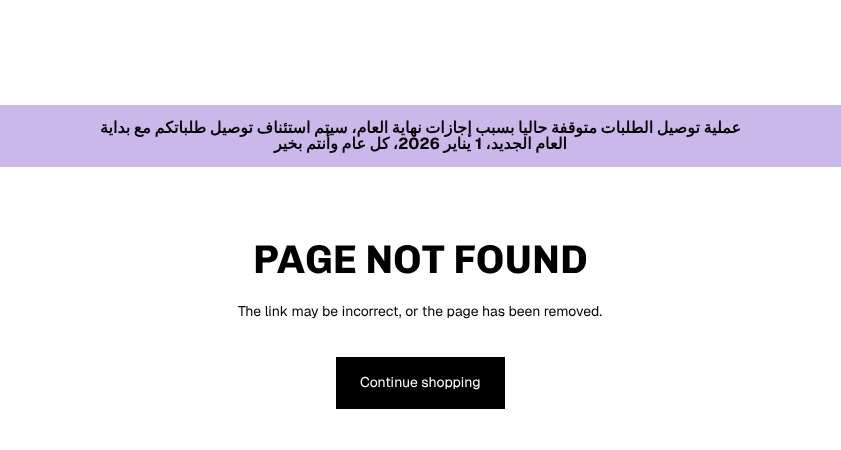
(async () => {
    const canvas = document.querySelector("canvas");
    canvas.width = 841;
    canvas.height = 450;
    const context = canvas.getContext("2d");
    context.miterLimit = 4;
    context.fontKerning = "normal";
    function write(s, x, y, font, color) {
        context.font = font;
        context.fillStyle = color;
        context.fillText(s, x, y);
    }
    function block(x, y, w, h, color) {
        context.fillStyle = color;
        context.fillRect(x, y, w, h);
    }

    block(0, 0, 841, 450, "rgb(255, 255, 255)");
    block(0, 105, 841, 62, "rgb(203, 183, 233)");
    context.wordSpacing = "-1.5px";
    context.direction = "rtl";
    write("عملية توصيل الطلبات متوقفة حاليا بسبب إجازات نهاية العام، سيتم استئناف توصيل طلباتكم مع بداية", 741, 133, "bold 16px DejaVu Sans", "rgb(0, 0, 0)");
    write("العام الجديد،", 567, 149, "bold 16px DejaVu Sans", "rgb(0, 0, 0)");
    context.wordSpacing = "0px";
    context.direction = "ltr";
    write("1", 475, 149, "bold 16px Geist", "rgb(0, 0, 0)");
    context.direction = "rtl";
    write("يناير", 471, 149, "bold 16px DejaVu Sans", "rgb(0, 0, 0)");
    context.direction = "ltr";
    write("2026", 398, 149, "bold 16px Geist", "rgb(0, 0, 0)");
    context.wordSpacing = "-1.5px";
    context.direction = "rtl";
    write("، كل عام وأنتم بخير", 398, 149, "bold 16px DejaVu Sans", "rgb(0, 0, 0)");
    context.wordSpacing = "0px";
    context.direction = "ltr";
    write("PAGE NOT FOUND", 253, 273, "bold 40.25px Chivo", "rgb(0, 0, 0)");
    write("The link may be incorrect, or the page has been removed.", 238, 316, "14px Geist", "rgb(0, 0, 0)");
    block(336, 357, 169, 52, "rgb(0, 0, 0)");
    write("Continue shopping", 360, 387, "14px Geist", "rgb(255, 255, 255)");
})();
